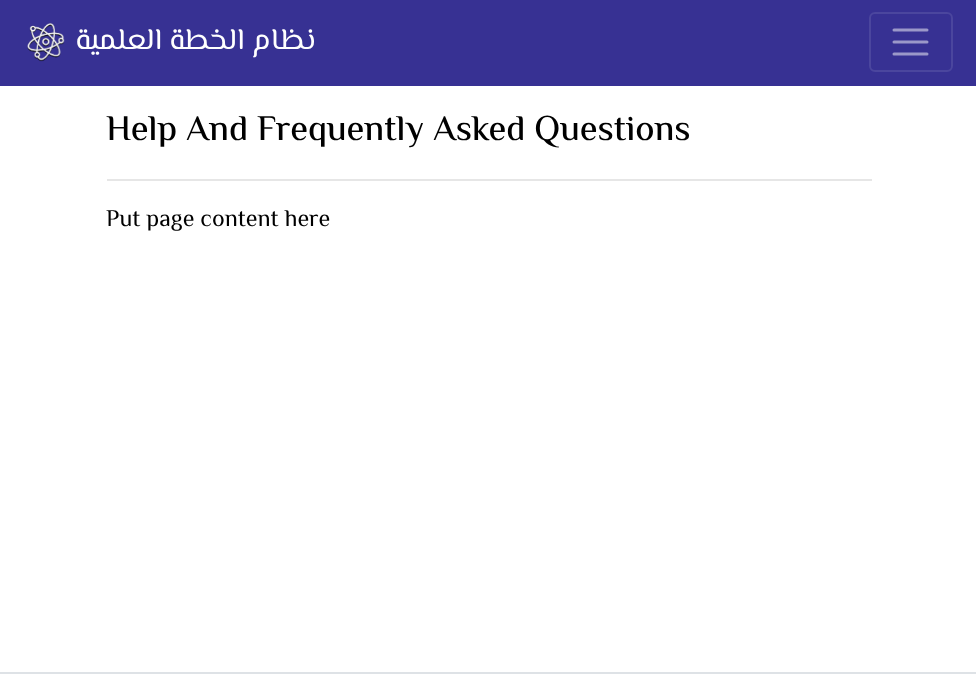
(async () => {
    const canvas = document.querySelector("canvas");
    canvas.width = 976;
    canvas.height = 687;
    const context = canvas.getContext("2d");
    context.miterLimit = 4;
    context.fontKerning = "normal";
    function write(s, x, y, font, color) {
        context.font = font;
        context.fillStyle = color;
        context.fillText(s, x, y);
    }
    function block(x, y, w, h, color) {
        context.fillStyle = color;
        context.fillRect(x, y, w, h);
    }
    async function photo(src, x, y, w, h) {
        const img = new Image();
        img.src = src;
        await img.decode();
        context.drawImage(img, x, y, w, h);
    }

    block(0, 0, 976, 687, "rgb(255, 255, 255)");
    block(0, 0, 976, 86, "rgb(55, 49, 147)");
    await photo("media/1.png", 27, 23, 38, 39);
    context.direction = "rtl";
    write("نظام الخطة العلمية", 316, 49, "30px El Messiri", "rgb(255, 255, 255)");
    context.beginPath();
    context.roundRect(870, 13, 82, 58, 5);
    context.strokeStyle = "rgb(75, 70, 158)";
    context.lineWidth = 2;
    context.stroke();
    context.beginPath();
    context.moveTo(894, 30);
    context.lineTo(927, 30);
    context.moveTo(894, 42);
    context.lineTo(927, 42);
    context.moveTo(894, 54);
    context.lineTo(927, 54);
    context.strokeStyle = "rgb(155, 152, 201)";
    context.lineWidth = 3;
    context.lineCap = "round";
    context.stroke();
    context.direction = "ltr";
    write("Help And Frequently Asked Questions", 106, 140, "500 36px El Messiri", "rgb(0, 0, 0)");
    block(107, 179, 765, 2, "rgb(230, 230, 230)");
    write("Put page content here", 106, 226, "24px El Messiri", "rgb(0, 0, 0)");
    block(0, 672, 976, 2, "rgb(222, 226, 230)");
})();
